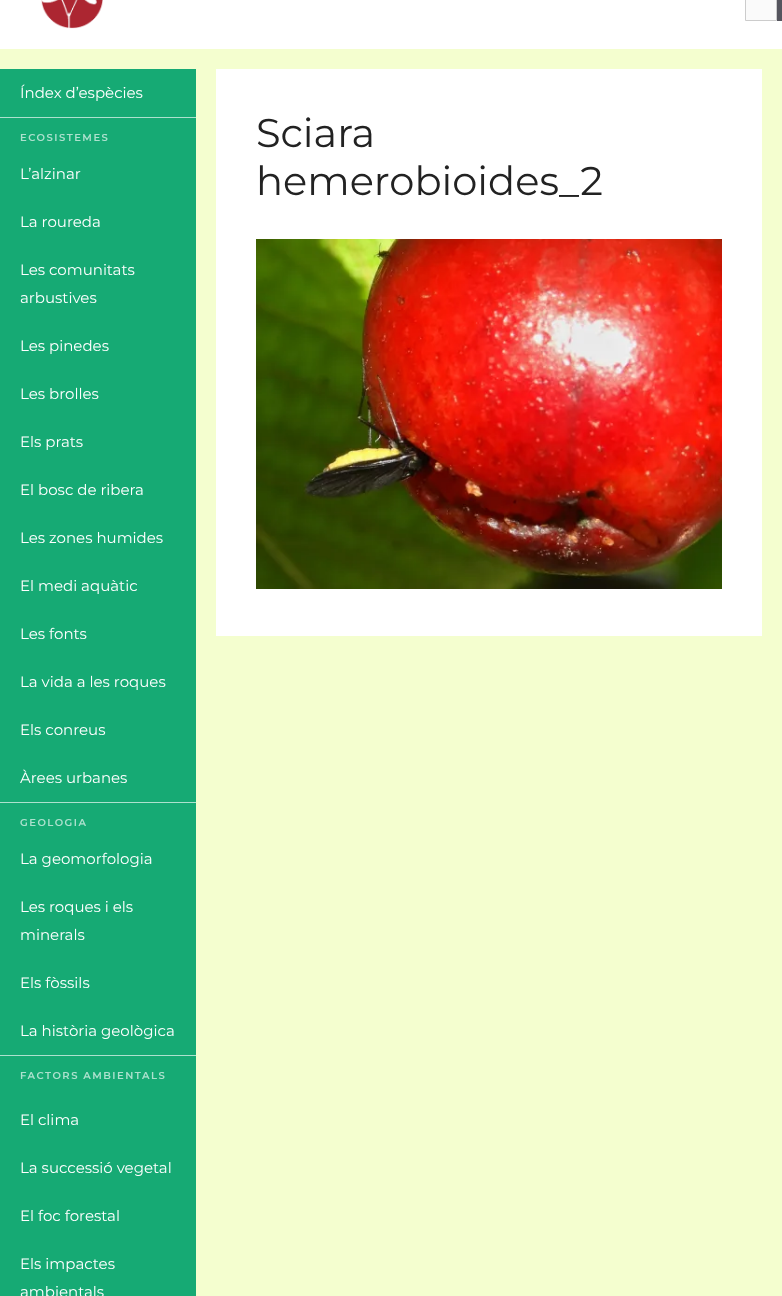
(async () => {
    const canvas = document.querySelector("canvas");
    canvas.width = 782;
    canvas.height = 1296;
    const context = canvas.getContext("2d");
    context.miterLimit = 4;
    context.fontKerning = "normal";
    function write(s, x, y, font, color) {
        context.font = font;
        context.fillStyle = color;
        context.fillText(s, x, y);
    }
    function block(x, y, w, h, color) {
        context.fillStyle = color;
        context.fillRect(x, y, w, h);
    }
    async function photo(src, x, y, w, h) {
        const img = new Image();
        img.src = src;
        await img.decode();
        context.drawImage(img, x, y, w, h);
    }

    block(0, 0, 782, 1296, "rgb(244, 254, 207)");
    block(0, 0, 782, 49, "rgb(255, 255, 255)");
    await photo("media/1.png", 41, 0, 62, 29);
    context.fillStyle = "rgb(250, 250, 250)";
    context.beginPath();
    context.rect(745.5, -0.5, 31, 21);
    context.fill();
    context.strokeStyle = "rgb(204, 204, 204)";
    context.stroke();
    block(777, 0, 5, 21, "rgb(85, 85, 94)");
    block(0, 69, 196, 1227, "rgb(22, 170, 116)");
    write("Índex d’espècies", 20, 98, "15px Montserrat", "rgb(255, 255, 255)");
    block(0, 117, 196, 1, "rgb(173, 225, 206)");
    context.letterSpacing = "1.5px";
    write("ECOSISTEMES", 20, 141, "600 10px Montserrat", "rgb(173, 225, 206)");
    context.letterSpacing = "0px";
    write("L’alzinar", 20, 179, "15px Montserrat", "rgb(255, 255, 255)");
    write("La roureda", 20, 227, "15px Montserrat", "rgb(255, 255, 255)");
    write("Les comunitats", 20, 275, "15px Montserrat", "rgb(255, 255, 255)");
    write("arbustives", 20, 303, "15px Montserrat", "rgb(255, 255, 255)");
    write("Les pinedes", 20, 351, "15px Montserrat", "rgb(255, 255, 255)");
    write("Les brolles", 20, 399, "15px Montserrat", "rgb(255, 255, 255)");
    write("Els prats", 20, 447, "15px Montserrat", "rgb(255, 255, 255)");
    write("El bosc de ribera", 20, 495, "15px Montserrat", "rgb(255, 255, 255)");
    write("Les zones humides", 20, 543, "15px Montserrat", "rgb(255, 255, 255)");
    write("El medi aquàtic", 20, 591, "15px Montserrat", "rgb(255, 255, 255)");
    write("Les fonts", 20, 639, "15px Montserrat", "rgb(255, 255, 255)");
    write("La vida a les roques", 20, 687, "15px Montserrat", "rgb(255, 255, 255)");
    write("Els conreus", 20, 735, "15px Montserrat", "rgb(255, 255, 255)");
    write("Àrees urbanes", 20, 783, "15px Montserrat", "rgb(255, 255, 255)");
    block(0, 802, 196, 1, "rgb(173, 225, 206)");
    context.letterSpacing = "1.5px";
    write("GEOLOGIA", 20, 826, "600 10px Montserrat", "rgb(173, 225, 206)");
    context.letterSpacing = "0px";
    write("La geomorfologia", 20, 864, "15px Montserrat", "rgb(255, 255, 255)");
    write("Les roques i els", 20, 912, "15px Montserrat", "rgb(255, 255, 255)");
    write("minerals", 20, 940, "15px Montserrat", "rgb(255, 255, 255)");
    write("Els fòssils", 20, 988, "15px Montserrat", "rgb(255, 255, 255)");
    write("La història geològica", 20, 1036, "15px Montserrat", "rgb(255, 255, 255)");
    block(0, 1055, 196, 1, "rgb(173, 225, 206)");
    context.letterSpacing = "1.5px";
    write("FACTORS AMBIENTALS", 20, 1079, "600 10px Montserrat", "rgb(173, 225, 206)");
    context.letterSpacing = "0px";
    write("El clima", 20, 1125, "15px Montserrat", "rgb(255, 255, 255)");
    write("La successió vegetal", 20, 1173, "15px Montserrat", "rgb(255, 255, 255)");
    write("El foc forestal", 20, 1221, "15px Montserrat", "rgb(255, 255, 255)");
    write("Els impactes", 20, 1269, "15px Montserrat", "rgb(255, 255, 255)");
    write("ambientals", 20, 1297, "15px Montserrat", "rgb(255, 255, 255)");
    block(216, 69, 546, 567, "rgb(255, 255, 255)");
    write("Sciara", 256, 147, "40px Montserrat", "rgb(34, 34, 34)");
    write("hemerobioides_2", 256, 195, "40px Montserrat", "rgb(34, 34, 34)");
    await photo("media/2.png", 256, 239, 466, 350);
})();
